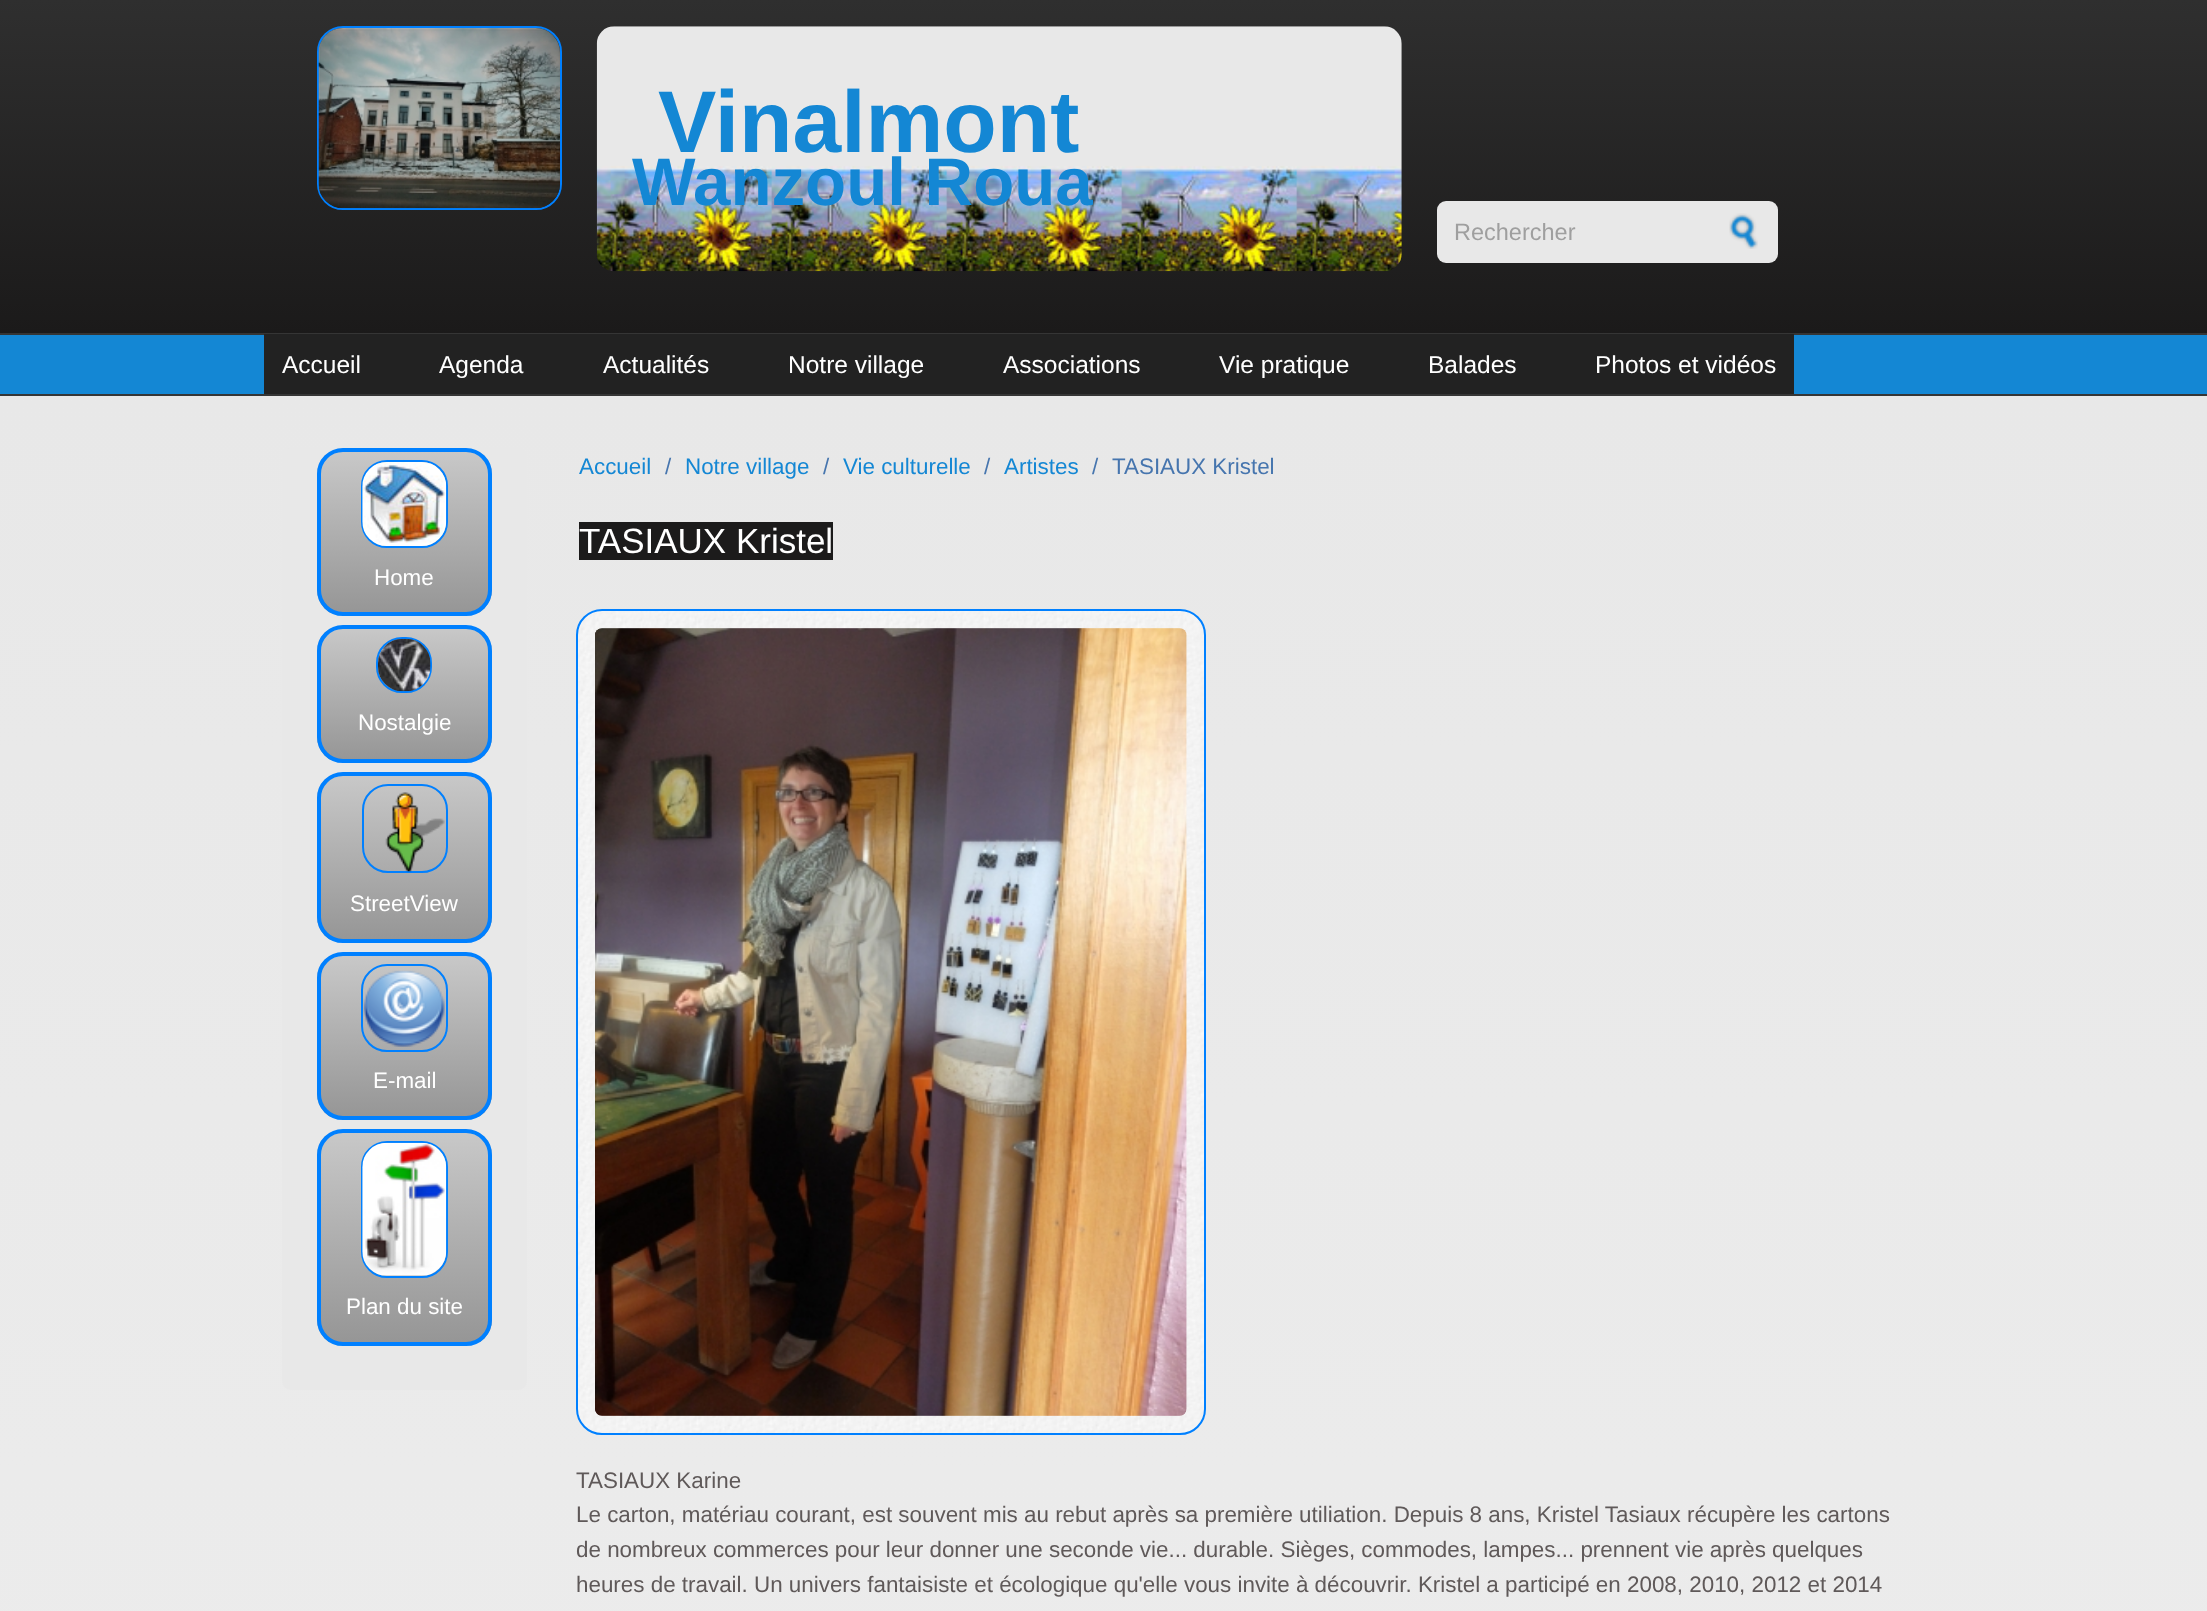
(async () => {
    const canvas = document.querySelector("canvas");
    canvas.width = 2207;
    canvas.height = 1611;
    const context = canvas.getContext("2d");
    context.miterLimit = 4;
    context.fontKerning = "normal";
    function write(s, x, y, font, color) {
        context.font = font;
        context.fillStyle = color;
        context.fillText(s, x, y);
    }
    function block(x, y, w, h, color) {
        context.fillStyle = color;
        context.fillRect(x, y, w, h);
    }
    function card(x, y, w, h, r, color) {
        context.fillStyle = color;
        context.beginPath();
        context.roundRect(x, y, w, h, r);
        context.fill();
    }
    async function photo(src, x, y, w, h) {
        const img = new Image();
        img.src = src;
        await img.decode();
        context.drawImage(img, x, y, w, h);
    }
    let gradient;

    block(0, 0, 2207, 1611, "rgb(255, 255, 255)");
    gradient = context.createLinearGradient(1104, 0, 1104, 333);
    gradient.addColorStop(0, "rgb(47, 47, 47)");
    gradient.addColorStop(1, "rgb(27, 26, 26)");
    context.fillStyle = gradient;
    context.fillRect(0, 0, 2207, 333);
    context.beginPath();
    context.roundRect(318, 27, 243, 182, 25);
    context.strokeStyle = "rgb(0, 128, 255)";
    context.lineWidth = 2;
    context.stroke();
    await photo("media/1.png", 318, 28, 242, 181);
    await photo("media/2.png", 596, 26, 806, 246);
    write("Vinalmont", 658, 152, "bold 87.5px Liberation Sans", "rgb(20, 135, 212)");
    write("Wanzoul Roua", 632, 205, "bold 67.25px Liberation Sans", "rgb(20, 135, 212)");
    card(1437, 201, 341, 62, 9, "rgb(232, 232, 232)");
    write("Rechercher", 1454, 240, "23.5px Liberation Sans", "rgb(159, 159, 159)");
    await photo("media/3.png", 1729, 213, 29, 36);
    block(0, 335, 2207, 59, "rgb(20, 135, 212)");
    block(0, 333, 2207, 2, "rgb(53, 53, 53)");
    block(0, 394, 2207, 2, "rgb(53, 53, 53)");
    block(264, 334, 1530, 60, "rgb(34, 34, 34)");
    write("Accueil", 282, 373, "24.5px Liberation Sans", "rgb(255, 255, 255)");
    write("Agenda", 439, 373, "24.5px Liberation Sans", "rgb(255, 255, 255)");
    write("Actualités", 603, 373, "24.5px Liberation Sans", "rgb(255, 255, 255)");
    write("Notre village", 788, 373, "24.5px Liberation Sans", "rgb(255, 255, 255)");
    write("Associations", 1003, 373, "24.5px Liberation Sans", "rgb(255, 255, 255)");
    write("Vie pratique", 1219, 373, "24.5px Liberation Sans", "rgb(255, 255, 255)");
    write("Balades", 1428, 373, "24.5px Liberation Sans", "rgb(255, 255, 255)");
    write("Photos et vidéos", 1595, 373, "24.5px Liberation Sans", "rgb(255, 255, 255)");
    gradient = context.createLinearGradient(1104, 395, 1104, 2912);
    gradient.addColorStop(0, "rgb(232, 232, 232)");
    gradient.addColorStop(1, "rgb(239, 239, 239)");
    context.fillStyle = gradient;
    context.fillRect(0, 396, 2207, 1215);
    card(282, 448, 245, 942, 9, "rgb(232, 232, 232)");
    context.save();
    context.beginPath();
    context.roundRect(317, 448, 175, 168, 26);
    context.clip();
    gradient = context.createLinearGradient(404, 452, 404, 613);
    gradient.addColorStop(0, "rgb(200, 200, 200)");
    gradient.addColorStop(1, "rgb(150, 150, 150)");
    context.fillStyle = gradient;
    context.fillRect(317, 452, 175, 161);
    context.restore();
    context.beginPath();
    context.roundRect(319, 450, 171, 164, 24);
    context.lineWidth = 4;
    context.stroke();
    context.beginPath();
    context.roundRect(362, 461, 85, 86, 25);
    context.lineWidth = 2;
    context.stroke();
    await photo("media/4.png", 362, 462, 85, 84);
    write("Home", 374, 585, "22.4px Liberation Sans", "rgb(255, 255, 255)");
    context.save();
    context.beginPath();
    context.roundRect(317, 625, 175, 138, 26);
    context.clip();
    gradient = context.createLinearGradient(404, 628, 404, 760);
    gradient.addColorStop(0, "rgb(200, 200, 200)");
    gradient.addColorStop(1, "rgb(150, 150, 150)");
    context.fillStyle = gradient;
    context.fillRect(317, 628, 175, 132);
    context.restore();
    context.beginPath();
    context.roundRect(319, 627, 171, 134, 24);
    context.lineWidth = 4;
    context.stroke();
    context.beginPath();
    context.roundRect(377, 638, 54, 54, 25);
    context.lineWidth = 2;
    context.stroke();
    await photo("media/5.png", 378, 638, 53, 54);
    write("Nostalgie", 358, 730, "22.4px Liberation Sans", "rgb(255, 255, 255)");
    context.save();
    context.beginPath();
    context.roundRect(317, 772, 175, 171, 26);
    context.clip();
    gradient = context.createLinearGradient(404, 775, 404, 940);
    gradient.addColorStop(0, "rgb(200, 200, 200)");
    gradient.addColorStop(1, "rgb(150, 150, 150)");
    context.fillStyle = gradient;
    context.fillRect(317, 775, 175, 165);
    context.restore();
    context.beginPath();
    context.roundRect(319, 774, 171, 167, 24);
    context.lineWidth = 4;
    context.stroke();
    context.beginPath();
    context.roundRect(363, 785, 84, 87, 25);
    context.lineWidth = 2;
    context.stroke();
    await photo("media/6.png", 385, 792, 60, 80);
    write("StreetView", 350, 911, "22.4px Liberation Sans", "rgb(255, 255, 255)");
    context.save();
    context.beginPath();
    context.roundRect(317, 952, 175, 168, 26);
    context.clip();
    gradient = context.createLinearGradient(404, 956, 404, 1117);
    gradient.addColorStop(0, "rgb(200, 200, 200)");
    gradient.addColorStop(1, "rgb(150, 150, 150)");
    context.fillStyle = gradient;
    context.fillRect(317, 956, 175, 161);
    context.restore();
    context.beginPath();
    context.roundRect(319, 954, 171, 164, 24);
    context.lineWidth = 4;
    context.stroke();
    context.beginPath();
    context.roundRect(362, 965, 85, 86, 25);
    context.lineWidth = 2;
    context.stroke();
    await photo("media/7.png", 363, 970, 82, 77);
    write("E-mail", 373, 1088, "22.4px Liberation Sans", "rgb(255, 255, 255)");
    context.save();
    context.beginPath();
    context.roundRect(317, 1129, 175, 217, 26);
    context.clip();
    gradient = context.createLinearGradient(404, 1132, 404, 1342);
    gradient.addColorStop(0, "rgb(200, 200, 200)");
    gradient.addColorStop(1, "rgb(150, 150, 150)");
    context.fillStyle = gradient;
    context.fillRect(317, 1132, 175, 210);
    context.restore();
    context.beginPath();
    context.roundRect(319, 1131, 171, 213, 24);
    context.lineWidth = 4;
    context.stroke();
    context.beginPath();
    context.roundRect(362, 1142, 85, 135, 25);
    context.lineWidth = 2;
    context.stroke();
    await photo("media/8.png", 362, 1142, 85, 134);
    write("Plan du site", 346, 1314, "22.4px Liberation Sans", "rgb(255, 255, 255)");
    write("Accueil", 579, 474, "22.4px Liberation Sans", "rgb(20, 135, 212)");
    write("/", 665, 474, "22.4px Liberation Sans", "rgb(70, 117, 174)");
    write("Notre village", 685, 474, "22.4px Liberation Sans", "rgb(20, 135, 212)");
    write("/", 823, 474, "22.4px Liberation Sans", "rgb(70, 117, 174)");
    write("Vie culturelle", 843, 474, "22.4px Liberation Sans", "rgb(20, 135, 212)");
    write("/", 984, 474, "22.4px Liberation Sans", "rgb(70, 117, 174)");
    write("Artistes", 1004, 474, "22.4px Liberation Sans", "rgb(20, 135, 212)");
    write("/", 1092, 474, "22.4px Liberation Sans", "rgb(70, 117, 174)");
    write("TASIAUX Kristel", 1112, 474, "22.4px Liberation Sans", "rgb(70, 117, 174)");
    block(579, 522, 254, 38, "rgb(28, 27, 27)");
    write("TASIAUX Kristel", 579, 553, "35px Liberation Sans", "rgb(255, 255, 255)");
    await photo("media/9.png", 576, 609, 630, 826);
    context.beginPath();
    context.roundRect(577, 610, 628, 824, 25);
    context.stroke();
    await photo("media/10.png", 595, 628, 592, 788);
    write("TASIAUX Karine", 576, 1488, "22.4px Liberation Sans", "rgb(95, 89, 89)");
    write("Le carton, matériau courant, est souvent mis au rebut après sa première utiliation. Depuis 8 ans, Kristel Tasiaux récupère les cartons", 576, 1522, "22.4px Liberation Sans", "rgb(95, 89, 89)");
    write("de nombreux commerces pour leur donner une seconde vie... durable. Sièges, commodes, lampes... prennent vie après quelques", 576, 1557, "22.4px Liberation Sans", "rgb(95, 89, 89)");
    write("heures de travail. Un univers fantaisiste et écologique qu'elle vous invite à découvrir. Kristel a participé en 2008, 2010, 2012 et 2014", 576, 1592, "22.4px Liberation Sans", "rgb(95, 89, 89)");
})();
